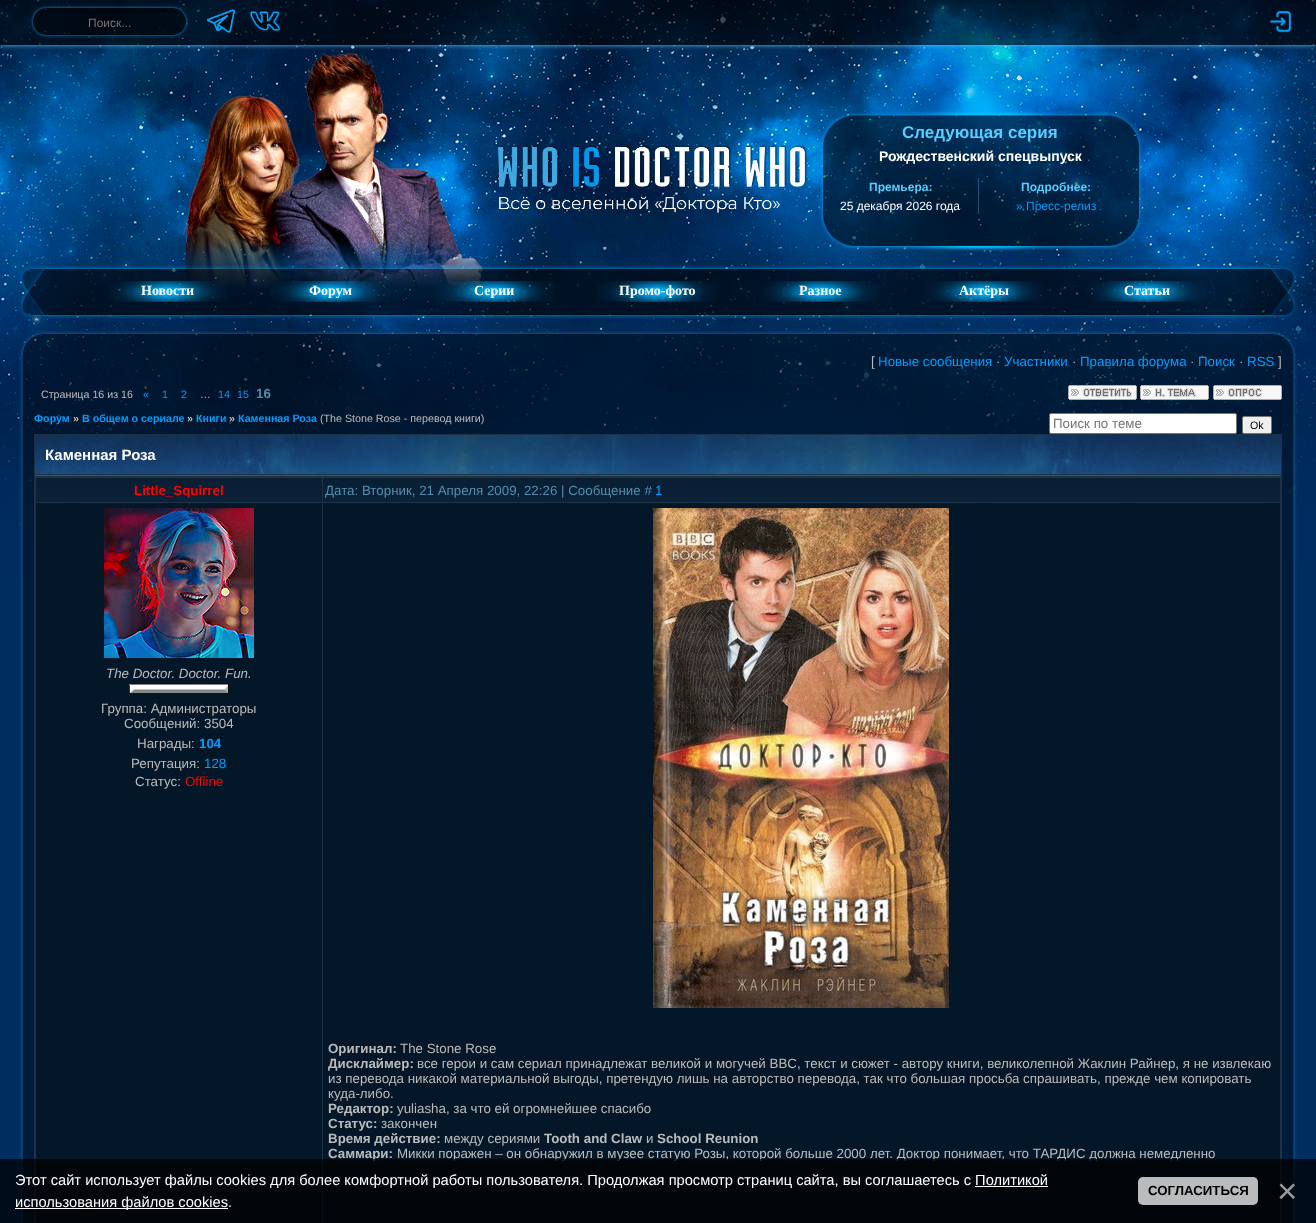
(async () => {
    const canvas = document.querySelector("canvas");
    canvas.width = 1316;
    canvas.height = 1223;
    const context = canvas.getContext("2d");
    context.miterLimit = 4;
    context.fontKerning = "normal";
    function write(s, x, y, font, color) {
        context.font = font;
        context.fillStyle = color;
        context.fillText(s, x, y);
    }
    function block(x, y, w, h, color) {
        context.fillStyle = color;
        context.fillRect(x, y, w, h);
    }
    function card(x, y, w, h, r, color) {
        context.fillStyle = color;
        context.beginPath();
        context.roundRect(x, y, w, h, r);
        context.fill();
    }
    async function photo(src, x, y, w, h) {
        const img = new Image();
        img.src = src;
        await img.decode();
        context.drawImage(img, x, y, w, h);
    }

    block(0, 0, 1316, 1223, "rgb(0, 45, 95)");
    await photo("media/1.png", 0, 0, 1316, 330);
    context.save();
    context.beginPath();
    context.rect(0, 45, 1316, 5);
    context.clip();
    context.fillStyle = "rgb(95, 196, 255)";
    context.filter = "blur(2.5px)";
    context.beginPath();
    context.rect(0, 0, 1316, 45);
    context.fill();
    context.filter = "none";
    context.restore();
    block(0, 0, 1316, 45, "rgba(0, 0, 0, 0.56)");
    await photo("media/2.png", 30, 5, 159, 33);
    write("Поиск...", 88, 27, "12px Liberation Sans", "rgb(117, 117, 117)");
    await photo("media/3.png", 206, 9, 30, 24);
    await photo("media/4.png", 250, 11, 30, 20);
    await photo("media/5.png", 1269, 10, 23, 23);
    await photo("media/10.png", 66, 265, 1184, 54);
    await photo("media/6.png", 182, 52, 301, 236);
    await photo("media/7.png", 498, 145, 309, 68);
    await photo("media/8.png", 819, 18, 324, 234);
    write("Следующая серия", 902, 138, "bold 17px Liberation Sans", "rgb(87, 206, 255)");
    write("Рождественский спецвыпуск", 879, 161, "bold 14px Liberation Sans", "rgb(255, 255, 255)");
    block(978, 178, 1, 36, "rgba(87, 206, 255, 0.3)");
    write("Премьера:", 869, 191, "bold 12px Liberation Sans", "rgb(87, 206, 255)");
    write("25 декабря 2026 года", 840, 210, "12px Liberation Sans", "rgb(255, 255, 255)");
    write("Подробнее:", 1021, 191, "bold 12px Liberation Sans", "rgb(87, 206, 255)");
    write("» Пресс-релиз", 1016, 210, "12px Liberation Sans", "rgb(0, 158, 255)");
    await photo("media/9.png", 19, 265, 47, 54);
    await photo("media/11.png", 107, 281, 120, 21);
    write("Новости", 141, 295, "bold 14px Liberation Serif", "rgb(255, 255, 255)");
    await photo("media/12.png", 271, 281, 120, 21);
    write("Форум", 309, 295, "bold 14px Liberation Serif", "rgb(255, 255, 255)");
    await photo("media/13.png", 434, 281, 120, 21);
    write("Серии", 474, 295, "bold 14px Liberation Serif", "rgb(255, 255, 255)");
    await photo("media/14.png", 597, 281, 120, 21);
    write("Промо-фото", 619, 295, "bold 14px Liberation Serif", "rgb(255, 255, 255)");
    await photo("media/15.png", 760, 281, 120, 21);
    write("Разное", 799, 295, "bold 14px Liberation Serif", "rgb(255, 255, 255)");
    await photo("media/16.png", 924, 281, 120, 21);
    write("Актёры", 959, 295, "bold 14px Liberation Serif", "rgb(255, 255, 255)");
    await photo("media/17.png", 1087, 281, 120, 21);
    write("Статьи", 1124, 295, "bold 14px Liberation Serif", "rgb(255, 255, 255)");
    await photo("media/18.png", 1250, 265, 47, 54);
    await photo("media/19.png", 0, 330, 1316, 233);
    await photo("media/20.png", 20, 331, 30, 23);
    await photo("media/21.png", 50, 331, 1216, 23);
    await photo("media/22.png", 1266, 331, 30, 23);
    await photo("media/23.png", 19, 354, 15, 869);
    block(34, 354, 1248, 80, "rgba(0, 0, 0, 0.4)");
    write("[", 871, 366, "13.33px Liberation Sans", "rgb(187, 187, 187)");
    write("Новые сообщения", 878, 366, "13.33px Liberation Sans", "rgb(0, 158, 255)");
    write("·", 996, 366, "13.33px Liberation Sans", "rgb(187, 187, 187)");
    write("Участники", 1004, 366, "13.33px Liberation Sans", "rgb(0, 158, 255)");
    write("·", 1072, 366, "13.33px Liberation Sans", "rgb(187, 187, 187)");
    write("Правила форума", 1080, 366, "13.33px Liberation Sans", "rgb(0, 158, 255)");
    write("·", 1190, 366, "13.33px Liberation Sans", "rgb(187, 187, 187)");
    write("Поиск", 1198, 366, "13.33px Liberation Sans", "rgb(0, 158, 255)");
    write("·", 1239, 366, "13.33px Liberation Sans", "rgb(187, 187, 187)");
    write("RSS", 1247, 366, "13.33px Liberation Sans", "rgb(0, 158, 255)");
    write("]", 1278, 366, "13.33px Liberation Sans", "rgb(187, 187, 187)");
    write("Страница 16 из 16", 41, 398, "10.7px Liberation Sans", "rgb(187, 187, 187)");
    write("«", 143, 398, "10.7px Liberation Sans", "rgb(0, 158, 255)");
    write("1", 162, 398, "10.7px Liberation Sans", "rgb(0, 158, 255)");
    write("2", 181, 398, "10.7px Liberation Sans", "rgb(0, 158, 255)");
    write("…", 200, 398, "10.7px Liberation Sans", "rgb(187, 187, 187)");
    write("14", 218, 398, "10.7px Liberation Sans", "rgb(0, 158, 255)");
    write("15", 237, 398, "10.7px Liberation Sans", "rgb(0, 158, 255)");
    write("16", 256, 398, "bold 13.33px Liberation Sans", "rgb(81, 142, 173)");
    await photo("media/24.png", 1068, 385, 69, 15);
    await photo("media/25.png", 1140, 385, 69, 15);
    await photo("media/26.png", 1213, 385, 69, 15);
    write("Форум", 34, 422, "bold 10.7px Liberation Sans", "rgb(0, 158, 255)");
    write("»", 73, 422, "bold 10.7px Liberation Sans", "rgb(187, 187, 187)");
    write("В общем о сериале", 82, 422, "bold 10.7px Liberation Sans", "rgb(0, 158, 255)");
    write("»", 187, 422, "bold 10.7px Liberation Sans", "rgb(187, 187, 187)");
    write("Книги", 196, 422, "bold 10.7px Liberation Sans", "rgb(0, 158, 255)");
    write("»", 229, 422, "bold 10.7px Liberation Sans", "rgb(187, 187, 187)");
    write("Каменная Роза", 238, 422, "bold 10.7px Liberation Sans", "rgb(0, 158, 255)");
    write("(The Stone Rose - перевод книги)", 320, 422, "10.7px Liberation Sans", "rgb(187, 187, 187)");
    context.fillStyle = "rgb(255, 255, 255)";
    context.beginPath();
    context.roundRect(1049.5, 413.5, 187, 20, 1.5);
    context.fill();
    context.strokeStyle = "rgb(118, 118, 118)";
    context.stroke();
    write("Поиск по теме", 1053, 428, "13.33px Liberation Sans", "rgb(117, 117, 117)");
    context.fillStyle = "rgb(239, 239, 239)";
    context.beginPath();
    context.roundRect(1242.5, 416.5, 29, 17, 1.5);
    context.fill();
    context.stroke();
    write("Ok", 1250, 429, "10.7px Liberation Sans", "rgb(0, 0, 0)");
    block(34, 434, 1248, 789, "rgb(29, 50, 69)");
    await photo("media/27.png", 35, 435, 1246, 39);
    write("Каменная Роза", 45, 460, "bold 15px Liberation Sans", "rgb(255, 255, 255)");
    block(35, 475, 1246, 1, "rgb(37, 88, 136)");
    await photo("media/28.png", 36, 478, 286, 24);
    write("Little_Squirrel", 134, 495, "bold 13.33px Liberation Sans", "rgb(255, 0, 0)");
    await photo("media/29.png", 323, 478, 957, 24);
    write("Дата: Вторник, 21 Апреля 2009, 22:26 | Сообщение #", 325, 495, "13.33px Liberation Sans", "rgb(81, 142, 173)");
    write("1", 655, 495, "13.33px Liberation Sans", "rgb(0, 158, 255)");
    block(36, 503, 286, 720, "rgb(4, 23, 40)");
    await photo("media/30.png", 104, 508, 150, 150);
    write("The Doctor. Doctor. Fun.", 106, 678, "italic 13.33px Liberation Sans", "rgb(187, 187, 187)");
    await photo("media/31.png", 129, 684, 100, 10);
    write("Группа: Администраторы", 101, 713, "13.33px Liberation Sans", "rgb(187, 187, 187)");
    write("Сообщений: 3504", 124, 728, "13.33px Liberation Sans", "rgb(187, 187, 187)");
    write("Награды:", 137, 748, "13.33px Liberation Sans", "rgb(187, 187, 187)");
    write("104", 199, 748, "bold 13.33px Liberation Sans", "rgb(0, 158, 255)");
    write("Репутация:", 131, 768, "13.33px Liberation Sans", "rgb(187, 187, 187)");
    write("128", 204, 768, "13.33px Liberation Sans", "rgb(0, 158, 255)");
    write("Статус:", 135, 786, "13.33px Liberation Sans", "rgb(187, 187, 187)");
    write("Offline", 185, 786, "13.33px Liberation Sans", "rgb(255, 0, 0)");
    block(323, 503, 957, 720, "rgb(4, 23, 40)");
    await photo("media/32.png", 653, 508, 296, 500);
    write("Оригинал:", 328, 1053, "bold 13.33px Liberation Sans", "rgb(187, 187, 187)");
    write("The Stone Rose", 400, 1053, "13.33px Liberation Sans", "rgb(187, 187, 187)");
    write("Дисклаймер:", 328, 1068, "bold 13.33px Liberation Sans", "rgb(187, 187, 187)");
    write("все герои и сам сериал принадлежат великой и могучей BBC, текст и сюжет - автору книги, великолепной Жаклин Райнер, я не извлекаю", 417, 1068, "13.33px Liberation Sans", "rgb(187, 187, 187)");
    write("из перевода никакой материальной выгоды, претендую лишь на авторство перевода, так что большая просьба спрашивать, прежде чем копировать", 328, 1083, "13.33px Liberation Sans", "rgb(187, 187, 187)");
    write("куда-либо.", 328, 1098, "13.33px Liberation Sans", "rgb(187, 187, 187)");
    write("Редактор:", 328, 1113, "bold 13.33px Liberation Sans", "rgb(187, 187, 187)");
    write("yuliasha, за что ей огромнейшее спасибо", 397, 1113, "13.33px Liberation Sans", "rgb(187, 187, 187)");
    write("Статус:", 328, 1128, "bold 13.33px Liberation Sans", "rgb(187, 187, 187)");
    write("закончен", 381, 1128, "13.33px Liberation Sans", "rgb(187, 187, 187)");
    write("Время действие:", 328, 1143, "bold 13.33px Liberation Sans", "rgb(187, 187, 187)");
    write("между сериями", 444, 1143, "13.33px Liberation Sans", "rgb(187, 187, 187)");
    write("Tooth and Claw", 544, 1143, "bold 13.33px Liberation Sans", "rgb(187, 187, 187)");
    write("и", 646, 1143, "13.33px Liberation Sans", "rgb(187, 187, 187)");
    write("School Reunion", 657, 1143, "bold 13.33px Liberation Sans", "rgb(187, 187, 187)");
    write("Саммари:", 328, 1158, "bold 13.33px Liberation Sans", "rgb(187, 187, 187)");
    write("Микки поражен – он обнаружил в музее статую Розы, которой больше 2000 лет. Доктор понимает, что ТАРДИС должна немедленно", 397, 1158, "13.33px Liberation Sans", "rgb(187, 187, 187)");
    await photo("media/33.png", 1282, 354, 15, 869);
    block(0, 1159, 1316, 64, "rgba(0, 0, 0, 0.73)");
    write("Этот сайт использует файлы cookies для более комфортной работы пользователя. Продолжая просмотр страниц сайта, вы соглашаетесь с Политикой", 15, 1185, "14.67px Liberation Sans", "rgb(255, 255, 255)");
    block(15, 1208, 213, 1, "rgb(255, 255, 255)");
    write("использования файлов cookies.", 15, 1207, "14.67px Liberation Sans", "rgb(255, 255, 255)");
    block(975, 1186, 73, 1, "rgb(255, 255, 255)");
    card(1138, 1177, 120, 28, 5, "rgba(255, 255, 255, 0.73)");
    write("СОГЛАСИТЬСЯ", 1148, 1195, "bold 13.25px Liberation Sans", "rgb(0, 0, 0)");
    write("×", 1277, 1203, "35px Liberation Sans", "rgb(153, 153, 153)");
})();
